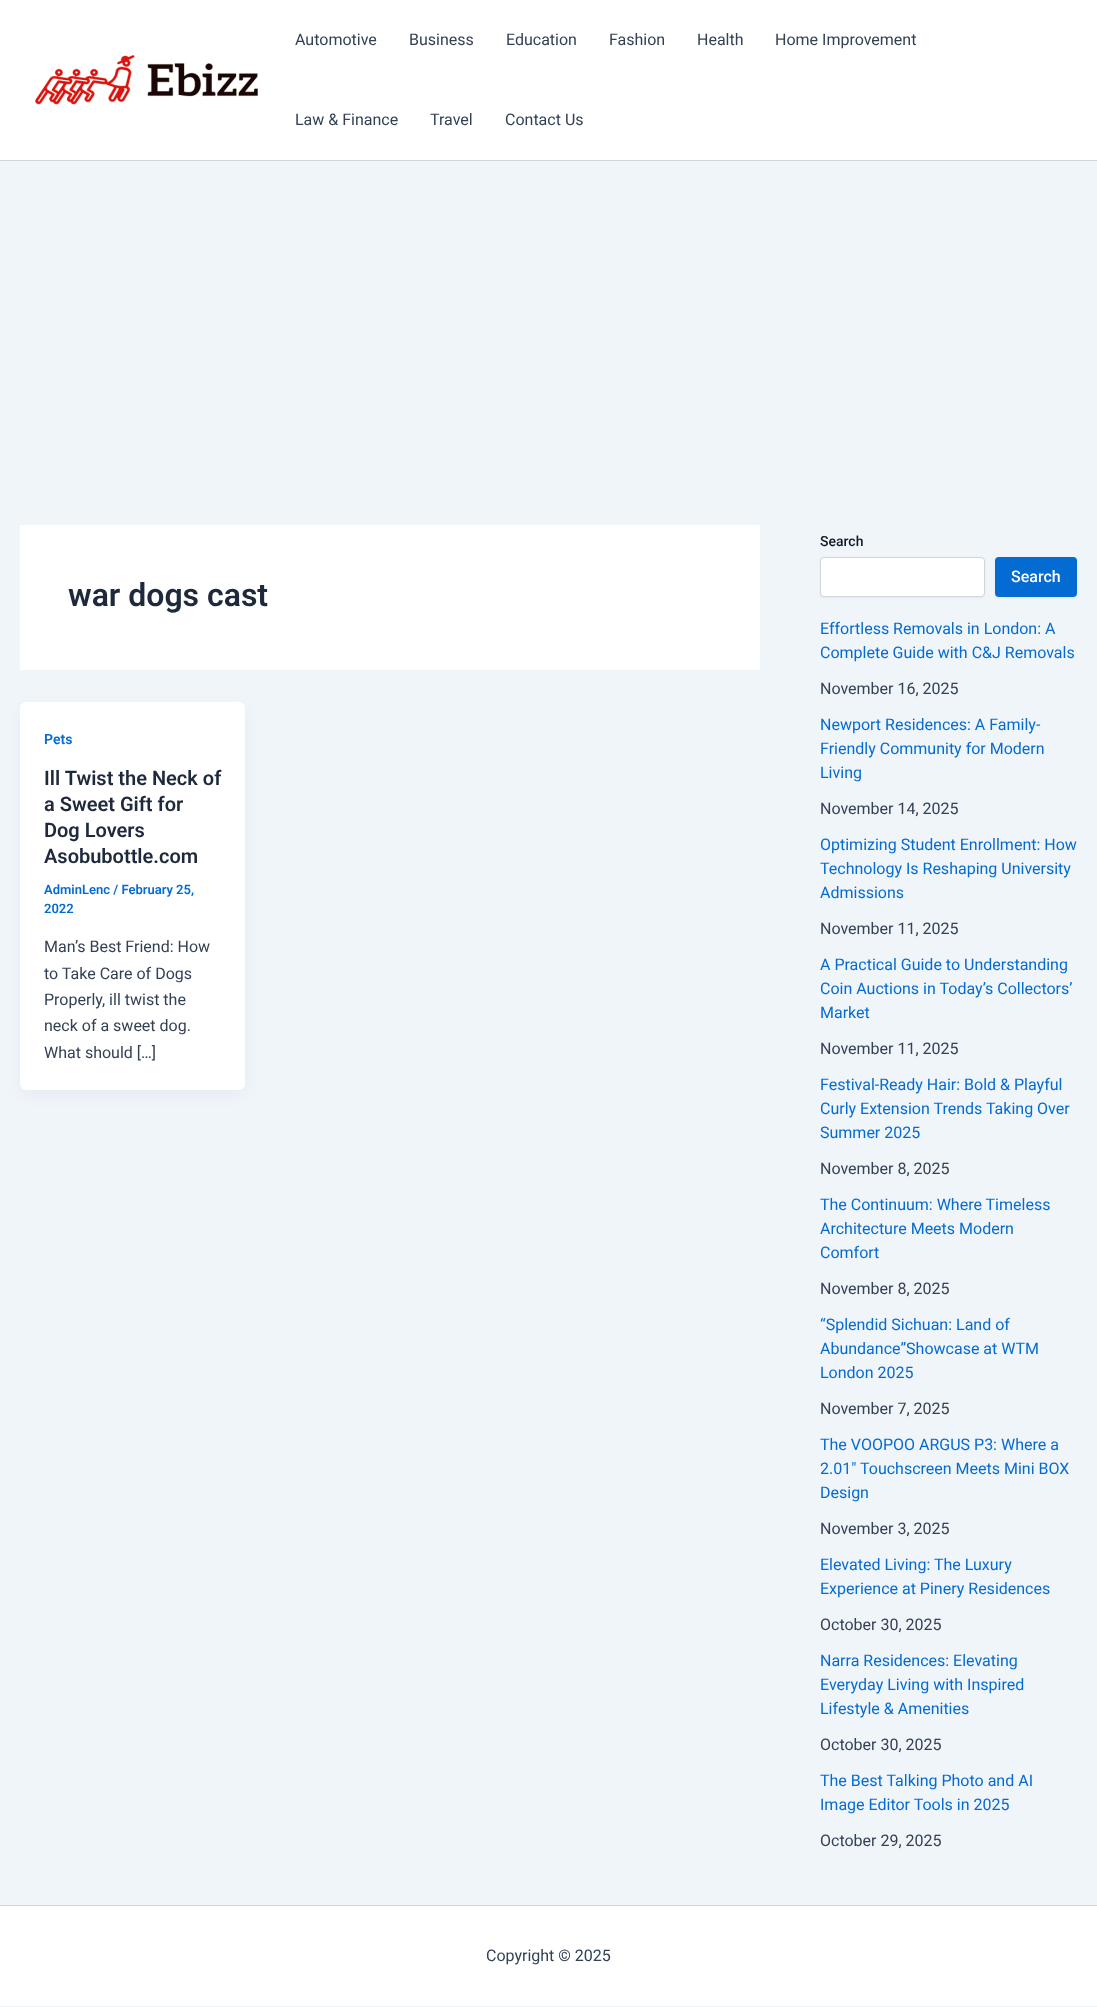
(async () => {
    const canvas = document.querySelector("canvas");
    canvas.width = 1097;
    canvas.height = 2007;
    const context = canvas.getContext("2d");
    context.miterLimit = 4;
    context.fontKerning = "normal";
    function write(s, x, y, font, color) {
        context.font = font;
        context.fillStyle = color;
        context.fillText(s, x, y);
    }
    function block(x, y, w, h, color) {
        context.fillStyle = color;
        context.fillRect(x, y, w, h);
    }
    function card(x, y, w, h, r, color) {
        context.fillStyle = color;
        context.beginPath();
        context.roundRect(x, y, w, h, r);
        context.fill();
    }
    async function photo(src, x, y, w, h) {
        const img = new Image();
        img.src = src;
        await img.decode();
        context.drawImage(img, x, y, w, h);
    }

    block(0, 0, 1097, 2007, "rgb(240, 245, 250)");
    block(0, 0, 1097, 160, "rgb(255, 255, 255)");
    block(0, 160, 1097, 1, "rgb(209, 213, 219)");
    await photo("media/1.png", 35, 55, 223, 50);
    write("Automotive", 295, 45, "16px Roboto", "rgb(51, 65, 85)");
    write("Business", 409, 45, "16px Roboto", "rgb(51, 65, 85)");
    write("Education", 506, 45, "16px Roboto", "rgb(51, 65, 85)");
    write("Fashion", 609, 45, "16px Roboto", "rgb(51, 65, 85)");
    write("Health", 697, 45, "16px Roboto", "rgb(51, 65, 85)");
    write("Home Improvement", 775, 45, "16px Roboto", "rgb(51, 65, 85)");
    write("Law & Finance", 295, 125, "16px Roboto", "rgb(51, 65, 85)");
    write("Travel", 430, 125, "16px Roboto", "rgb(51, 65, 85)");
    write("Contact Us", 505, 125, "16px Roboto", "rgb(51, 65, 85)");
    block(20, 525, 740, 145, "rgb(255, 255, 255)");
    write("war dogs cast", 68, 606, "600 32px Roboto", "rgb(30, 41, 59)");
    context.fillStyle = "rgba(16, 24, 40, 0.05)";
    context.filter = "blur(7.5px)";
    context.beginPath();
    context.roundRect(22, 710, 221, 384, 4);
    context.fill();
    context.filter = "none";
    card(20, 702, 225, 388, 6, "rgb(255, 255, 255)");
    write("Pets", 44, 744, "600 14px Roboto", "rgb(4, 107, 210)");
    write("Ill Twist the Neck of", 44, 785, "600 20px Roboto", "rgb(30, 41, 59)");
    write("a Sweet Gift for", 44, 811, "600 20px Roboto", "rgb(30, 41, 59)");
    write("Dog Lovers", 44, 837, "600 20px Roboto", "rgb(30, 41, 59)");
    write("Asobubottle.com", 44, 863, "600 20px Roboto", "rgb(30, 41, 59)");
    write("AdminLenc / February 25,", 44, 894, "600 13px Roboto", "rgb(4, 107, 210)");
    write("2022", 44, 913, "600 13px Roboto", "rgb(4, 107, 210)");
    write("Man’s Best Friend: How", 44, 952, "16px Roboto", "rgb(51, 65, 85)");
    write("to Take Care of Dogs", 44, 979, "16px Roboto", "rgb(51, 65, 85)");
    write("Properly, ill twist the", 44, 1005, "16px Roboto", "rgb(51, 65, 85)");
    write("neck of a sweet dog.", 44, 1031, "16px Roboto", "rgb(51, 65, 85)");
    write("What should […]", 44, 1058, "16px Roboto", "rgb(51, 65, 85)");
    write("Search", 820, 546, "500 14px Roboto", "rgb(17, 24, 39)");
    context.fillStyle = "rgba(0, 0, 0, 0.05)";
    context.filter = "blur(1px)";
    context.beginPath();
    context.roundRect(820, 558, 165, 40, 4);
    context.fill();
    context.filter = "none";
    context.fillStyle = "rgb(255, 255, 255)";
    context.beginPath();
    context.roundRect(820.5, 557.5, 164, 39, 3.5);
    context.fill();
    context.strokeStyle = "rgb(209, 213, 219)";
    context.stroke();
    context.fillStyle = "rgba(0, 0, 0, 0.05)";
    context.filter = "blur(1px)";
    context.beginPath();
    context.roundRect(995, 558, 82, 40, 4);
    context.fill();
    context.filter = "none";
    card(995, 557, 82, 40, 4, "rgb(4, 107, 210)");
    write("Search", 1011, 582, "500 16px Roboto", "rgb(255, 255, 255)");
    write("Effortless Removals in London: A", 820, 634, "16px Roboto", "rgb(4, 107, 210)");
    write("Complete Guide with C&J Removals", 820, 658, "16px Roboto", "rgb(4, 107, 210)");
    write("November 16, 2025", 820, 694, "16px Roboto", "rgb(51, 65, 85)");
    write("Newport Residences: A Family-", 820, 730, "16px Roboto", "rgb(4, 107, 210)");
    write("Friendly Community for Modern", 820, 754, "16px Roboto", "rgb(4, 107, 210)");
    write("Living", 820, 778, "16px Roboto", "rgb(4, 107, 210)");
    write("November 14, 2025", 820, 814, "16px Roboto", "rgb(51, 65, 85)");
    write("Optimizing Student Enrollment: How", 820, 850, "16px Roboto", "rgb(4, 107, 210)");
    write("Technology Is Reshaping University", 820, 874, "16px Roboto", "rgb(4, 107, 210)");
    write("Admissions", 820, 898, "16px Roboto", "rgb(4, 107, 210)");
    write("November 11, 2025", 820, 934, "16px Roboto", "rgb(51, 65, 85)");
    write("A Practical Guide to Understanding", 820, 970, "16px Roboto", "rgb(4, 107, 210)");
    write("Coin Auctions in Today’s Collectors’", 820, 994, "16px Roboto", "rgb(4, 107, 210)");
    write("Market", 820, 1018, "16px Roboto", "rgb(4, 107, 210)");
    write("November 11, 2025", 820, 1054, "16px Roboto", "rgb(51, 65, 85)");
    write("Festival-Ready Hair: Bold & Playful", 820, 1090, "16px Roboto", "rgb(4, 107, 210)");
    write("Curly Extension Trends Taking Over", 820, 1114, "16px Roboto", "rgb(4, 107, 210)");
    write("Summer 2025", 820, 1138, "16px Roboto", "rgb(4, 107, 210)");
    write("November 8, 2025", 820, 1174, "16px Roboto", "rgb(51, 65, 85)");
    write("The Continuum: Where Timeless", 820, 1210, "16px Roboto", "rgb(4, 107, 210)");
    write("Architecture Meets Modern", 820, 1234, "16px Roboto", "rgb(4, 107, 210)");
    write("Comfort", 820, 1258, "16px Roboto", "rgb(4, 107, 210)");
    write("November 8, 2025", 820, 1294, "16px Roboto", "rgb(51, 65, 85)");
    write("“Splendid Sichuan: Land of", 820, 1330, "16px Roboto", "rgb(4, 107, 210)");
    write("Abundance”Showcase at WTM", 820, 1354, "16px Roboto", "rgb(4, 107, 210)");
    write("London 2025", 820, 1378, "16px Roboto", "rgb(4, 107, 210)");
    write("November 7, 2025", 820, 1414, "16px Roboto", "rgb(51, 65, 85)");
    write("The VOOPOO ARGUS P3: Where a", 820, 1450, "16px Roboto", "rgb(4, 107, 210)");
    write("2.01″ Touchscreen Meets Mini BOX", 820, 1474, "16px Roboto", "rgb(4, 107, 210)");
    write("Design", 820, 1498, "16px Roboto", "rgb(4, 107, 210)");
    write("November 3, 2025", 820, 1534, "16px Roboto", "rgb(51, 65, 85)");
    write("Elevated Living: The Luxury", 820, 1570, "16px Roboto", "rgb(4, 107, 210)");
    write("Experience at Pinery Residences", 820, 1594, "16px Roboto", "rgb(4, 107, 210)");
    write("October 30, 2025", 820, 1630, "16px Roboto", "rgb(51, 65, 85)");
    write("Narra Residences: Elevating", 820, 1666, "16px Roboto", "rgb(4, 107, 210)");
    write("Everyday Living with Inspired", 820, 1690, "16px Roboto", "rgb(4, 107, 210)");
    write("Lifestyle & Amenities", 820, 1714, "16px Roboto", "rgb(4, 107, 210)");
    write("October 30, 2025", 820, 1750, "16px Roboto", "rgb(51, 65, 85)");
    write("The Best Talking Photo and AI", 820, 1786, "16px Roboto", "rgb(4, 107, 210)");
    write("Image Editor Tools in 2025", 820, 1810, "16px Roboto", "rgb(4, 107, 210)");
    write("October 29, 2025", 820, 1846, "16px Roboto", "rgb(51, 65, 85)");
    block(0, 1906, 1097, 100, "rgb(255, 255, 255)");
    block(0, 1905, 1097, 1, "rgb(209, 213, 219)");
    write("Copyright © 2025", 486, 1961, "16px Roboto", "rgb(51, 65, 85)");
})();
